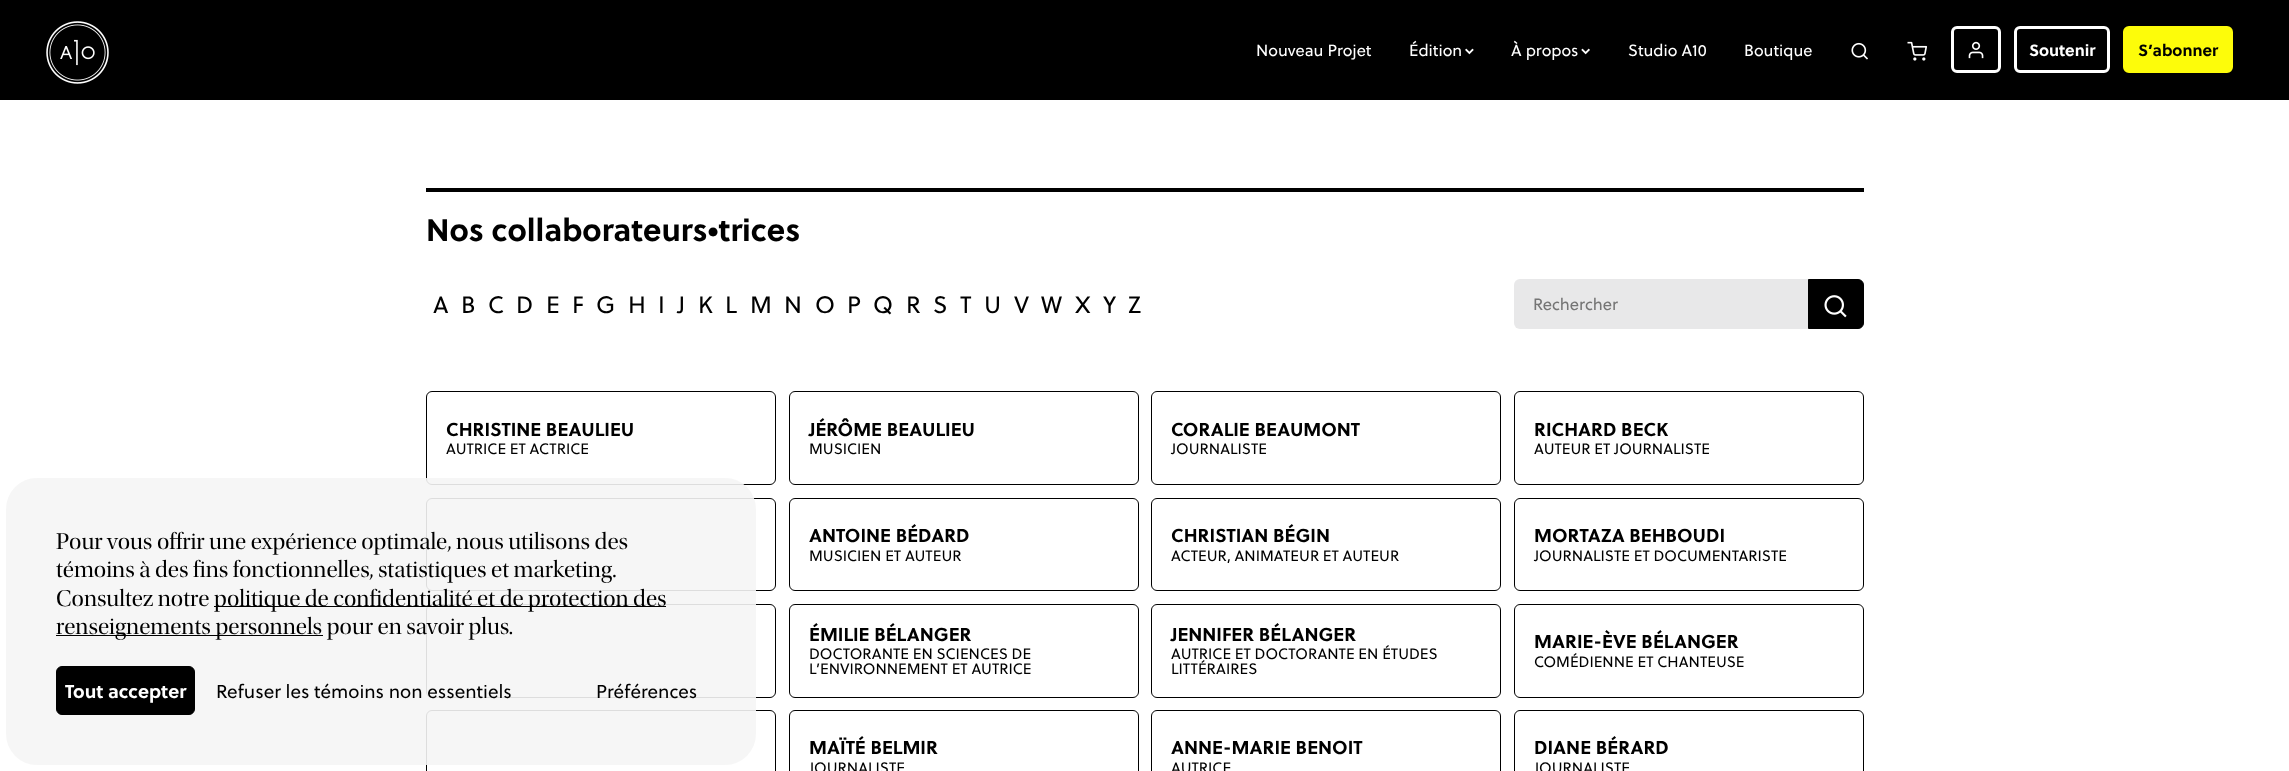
(async () => {
    const canvas = document.querySelector("canvas");
    canvas.width = 2289;
    canvas.height = 771;
    const context = canvas.getContext("2d");
    context.miterLimit = 4;
    context.fontKerning = "normal";
    function write(s, x, y, font, color) {
        context.font = font;
        context.fillStyle = color;
        context.fillText(s, x, y);
    }
    function block(x, y, w, h, color) {
        context.fillStyle = color;
        context.fillRect(x, y, w, h);
    }
    function card(x, y, w, h, r, color) {
        context.fillStyle = color;
        context.beginPath();
        context.roundRect(x, y, w, h, r);
        context.fill();
    }
    async function photo(src, x, y, w, h) {
        const img = new Image();
        img.src = src;
        await img.decode();
        context.drawImage(img, x, y, w, h);
    }

    block(0, 0, 2289, 771, "rgb(255, 255, 255)");
    block(0, 0, 2289, 100, "rgb(0, 0, 0)");
    await photo("media/1.png", 46, 21, 63, 63);
    write("Nouveau Projet", 1256, 56, "16.25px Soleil", "rgb(255, 255, 255)");
    write("Édition", 1409, 56, "16.25px Soleil", "rgb(255, 255, 255)");
    await photo("media/2.png", 1465, 48, 9, 7);
    write("À propos", 1511, 56, "16.25px Soleil", "rgb(255, 255, 255)");
    await photo("media/3.png", 1581, 48, 9, 7);
    write("Studio A10", 1628, 56, "16.25px Soleil", "rgb(255, 255, 255)");
    write("Boutique", 1744, 56, "16.25px Soleil", "rgb(255, 255, 255)");
    await photo("media/4.png", 1851, 42, 17, 18);
    await photo("media/5.png", 1907, 41, 21, 20);
    context.beginPath();
    context.roundRect(1952.5, 27.5, 47, 44, 4.5);
    context.strokeStyle = "rgb(255, 255, 255)";
    context.lineWidth = 3;
    context.stroke();
    await photo("media/6.png", 1968, 41, 16, 18);
    context.beginPath();
    context.roundRect(2015.5, 27.5, 93, 44, 4.5);
    context.stroke();
    write("Soutenir", 2029, 56, "bold 16.25px Soleil", "rgb(255, 255, 255)");
    context.fillStyle = "rgb(253, 252, 10)";
    context.beginPath();
    context.roundRect(2124.5, 27.5, 107, 44, 4.5);
    context.fill();
    context.strokeStyle = "rgb(253, 252, 10)";
    context.stroke();
    write("S’abonner", 2138, 56, "bold 16.25px Soleil", "rgb(0, 0, 0)");
    context.beginPath();
    context.roundRect(426.5, 391.5, 349, 93, 5.5);
    context.strokeStyle = "rgb(0, 0, 0)";
    context.lineWidth = 1;
    context.stroke();
    context.beginPath();
    context.roundRect(426.5, 498.5, 349, 92, 5.5);
    context.stroke();
    context.beginPath();
    context.roundRect(426.5, 604.5, 349, 93, 5.5);
    context.stroke();
    context.beginPath();
    context.roundRect(426.5, 710.5, 349, 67, 5.5);
    context.stroke();
    card(6, 478, 750, 287, 31, "rgba(245, 245, 245, 0.9)");
    write("Pour vous offrir une expérience optimale, nous utilisons des", 56, 549, "23.75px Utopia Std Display", "rgb(0, 0, 0)");
    write("témoins à des fins fonctionnelles, statistiques et marketing.", 56, 577, "23.75px Utopia Std Display", "rgb(0, 0, 0)");
    write("Consultez notre", 56, 606, "23.75px Utopia Std Display", "rgb(0, 0, 0)");
    block(214, 606, 452, 1, "rgb(0, 0, 0)");
    write("politique de confidentialité et de protection des", 214, 606, "23.75px Utopia Std Display", "rgb(0, 0, 0)");
    block(56, 635, 267, 1, "rgb(0, 0, 0)");
    write("renseignements personnels pour en savoir plus.", 56, 634, "23.75px Utopia Std Display", "rgb(0, 0, 0)");
    context.beginPath();
    context.roundRect(56.5, 666.5, 138, 48, 5.5);
    context.fill();
    context.stroke();
    write("Tout accepter", 65, 698, "bold 18.75px Soleil", "rgb(255, 255, 255)");
    write("Refuser les témoins non essentiels", 216, 698, "18.75px Soleil", "rgb(0, 0, 0)");
    write("Préférences", 596, 698, "18.75px Soleil", "rgb(0, 0, 0)");
    block(426, 188, 1438, 4, "rgb(0, 0, 0)");
    write("Nos collaborateurs•trices", 426, 241, "bold 31.25px Soleil", "rgb(0, 0, 0)");
    write("A", 433, 313, "23.75px Soleil", "rgb(0, 0, 0)");
    write("B", 461, 313, "23.75px Soleil", "rgb(0, 0, 0)");
    write("C", 488, 313, "23.75px Soleil", "rgb(0, 0, 0)");
    write("D", 516, 313, "23.75px Soleil", "rgb(0, 0, 0)");
    write("E", 546, 313, "23.75px Soleil", "rgb(0, 0, 0)");
    write("F", 572, 313, "23.75px Soleil", "rgb(0, 0, 0)");
    write("G", 596, 313, "23.75px Soleil", "rgb(0, 0, 0)");
    write("H", 628, 313, "23.75px Soleil", "rgb(0, 0, 0)");
    write("I", 658, 313, "23.75px Soleil", "rgb(0, 0, 0)");
    write("J", 677, 313, "23.75px Soleil", "rgb(0, 0, 0)");
    write("K", 698, 313, "23.75px Soleil", "rgb(0, 0, 0)");
    write("L", 725, 313, "23.75px Soleil", "rgb(0, 0, 0)");
    write("M", 750, 313, "23.75px Soleil", "rgb(0, 0, 0)");
    write("N", 784, 313, "23.75px Soleil", "rgb(0, 0, 0)");
    write("O", 815, 313, "23.75px Soleil", "rgb(0, 0, 0)");
    write("P", 847, 313, "23.75px Soleil", "rgb(0, 0, 0)");
    write("Q", 873, 313, "23.75px Soleil", "rgb(0, 0, 0)");
    write("R", 906, 313, "23.75px Soleil", "rgb(0, 0, 0)");
    write("S", 933, 313, "23.75px Soleil", "rgb(0, 0, 0)");
    write("T", 960, 313, "23.75px Soleil", "rgb(0, 0, 0)");
    write("U", 984, 313, "23.75px Soleil", "rgb(0, 0, 0)");
    write("V", 1014, 313, "23.75px Soleil", "rgb(0, 0, 0)");
    write("W", 1041, 313, "23.75px Soleil", "rgb(0, 0, 0)");
    write("X", 1075, 313, "23.75px Soleil", "rgb(0, 0, 0)");
    write("Y", 1103, 313, "23.75px Soleil", "rgb(0, 0, 0)");
    write("Z", 1128, 313, "23.75px Soleil", "rgb(0, 0, 0)");
    context.fillStyle = "rgb(232, 232, 233)";
    context.beginPath();
    context.roundRect(1514, 279, 294, 50, [6, 0, 0, 6]);
    context.fill();
    write("Rechercher", 1533, 310, "16.5px Soleil", "rgb(117, 117, 117)");
    context.fillStyle = "rgb(0, 0, 0)";
    context.beginPath();
    context.roundRect(1808.5, 279.5, 55, 49, [0, 5.5, 5.5, 0]);
    context.fill();
    context.stroke();
    await photo("media/7.png", 1824, 295, 23, 23);
    write("CHRISTINE BEAULIEU", 446, 436, "bold 18.75px Soleil", "rgb(0, 0, 0)");
    write("AUTRICE ET ACTRICE", 446, 454, "15px Soleil", "rgb(0, 0, 0)");
    context.beginPath();
    context.roundRect(789.5, 391.5, 349, 93, 5.5);
    context.stroke();
    write("JÉRÔME BEAULIEU", 809, 436, "bold 18.75px Soleil", "rgb(0, 0, 0)");
    write("MUSICIEN", 809, 454, "15px Soleil", "rgb(0, 0, 0)");
    context.beginPath();
    context.roundRect(1151.5, 391.5, 349, 93, 5.5);
    context.stroke();
    write("CORALIE BEAUMONT", 1171, 436, "bold 18.75px Soleil", "rgb(0, 0, 0)");
    write("JOURNALISTE", 1171, 454, "15px Soleil", "rgb(0, 0, 0)");
    context.beginPath();
    context.roundRect(1514.5, 391.5, 349, 93, 5.5);
    context.stroke();
    write("RICHARD BECK", 1534, 436, "bold 18.75px Soleil", "rgb(0, 0, 0)");
    write("AUTEUR ET JOURNALISTE", 1534, 454, "15px Soleil", "rgb(0, 0, 0)");
    context.beginPath();
    context.roundRect(789.5, 498.5, 349, 92, 5.5);
    context.stroke();
    write("ANTOINE BÉDARD", 809, 542, "bold 18.75px Soleil", "rgb(0, 0, 0)");
    write("MUSICIEN ET AUTEUR", 809, 561, "15px Soleil", "rgb(0, 0, 0)");
    context.beginPath();
    context.roundRect(1151.5, 498.5, 349, 92, 5.5);
    context.stroke();
    write("CHRISTIAN BÉGIN", 1171, 542, "bold 18.75px Soleil", "rgb(0, 0, 0)");
    write("ACTEUR, ANIMATEUR ET AUTEUR", 1171, 561, "15px Soleil", "rgb(0, 0, 0)");
    context.beginPath();
    context.roundRect(1514.5, 498.5, 349, 92, 5.5);
    context.stroke();
    write("MORTAZA BEHBOUDI", 1534, 542, "bold 18.75px Soleil", "rgb(0, 0, 0)");
    write("JOURNALISTE ET DOCUMENTARISTE", 1534, 561, "15px Soleil", "rgb(0, 0, 0)");
    context.beginPath();
    context.roundRect(789.5, 604.5, 349, 93, 5.5);
    context.stroke();
    write("ÉMILIE BÉLANGER", 809, 641, "bold 18.75px Soleil", "rgb(0, 0, 0)");
    write("DOCTORANTE EN SCIENCES DE", 809, 659, "15px Soleil", "rgb(0, 0, 0)");
    write("L’ENVIRONNEMENT ET AUTRICE", 809, 674, "15px Soleil", "rgb(0, 0, 0)");
    context.beginPath();
    context.roundRect(1151.5, 604.5, 349, 93, 5.5);
    context.stroke();
    write("JENNIFER BÉLANGER", 1171, 641, "bold 18.75px Soleil", "rgb(0, 0, 0)");
    write("AUTRICE ET DOCTORANTE EN ÉTUDES", 1171, 659, "15px Soleil", "rgb(0, 0, 0)");
    write("LITTÉRAIRES", 1171, 674, "15px Soleil", "rgb(0, 0, 0)");
    context.beginPath();
    context.roundRect(1514.5, 604.5, 349, 93, 5.5);
    context.stroke();
    write("MARIE-ÈVE BÉLANGER", 1534, 648, "bold 18.75px Soleil", "rgb(0, 0, 0)");
    write("COMÉDIENNE ET CHANTEUSE", 1534, 667, "15px Soleil", "rgb(0, 0, 0)");
    context.beginPath();
    context.roundRect(789.5, 710.5, 349, 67, 5.5);
    context.stroke();
    write("MAÏTÉ BELMIR", 809, 754, "bold 18.75px Soleil", "rgb(0, 0, 0)");
    write("JOURNALISTE", 809, 773, "15px Soleil", "rgb(0, 0, 0)");
    context.beginPath();
    context.roundRect(1151.5, 710.5, 349, 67, 5.5);
    context.stroke();
    write("ANNE-MARIE BENOIT", 1171, 754, "bold 18.75px Soleil", "rgb(0, 0, 0)");
    write("AUTRICE", 1171, 773, "15px Soleil", "rgb(0, 0, 0)");
    context.beginPath();
    context.roundRect(1514.5, 710.5, 349, 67, 5.5);
    context.stroke();
    write("DIANE BÉRARD", 1534, 754, "bold 18.75px Soleil", "rgb(0, 0, 0)");
    write("JOURNALISTE", 1534, 773, "15px Soleil", "rgb(0, 0, 0)");
})();
